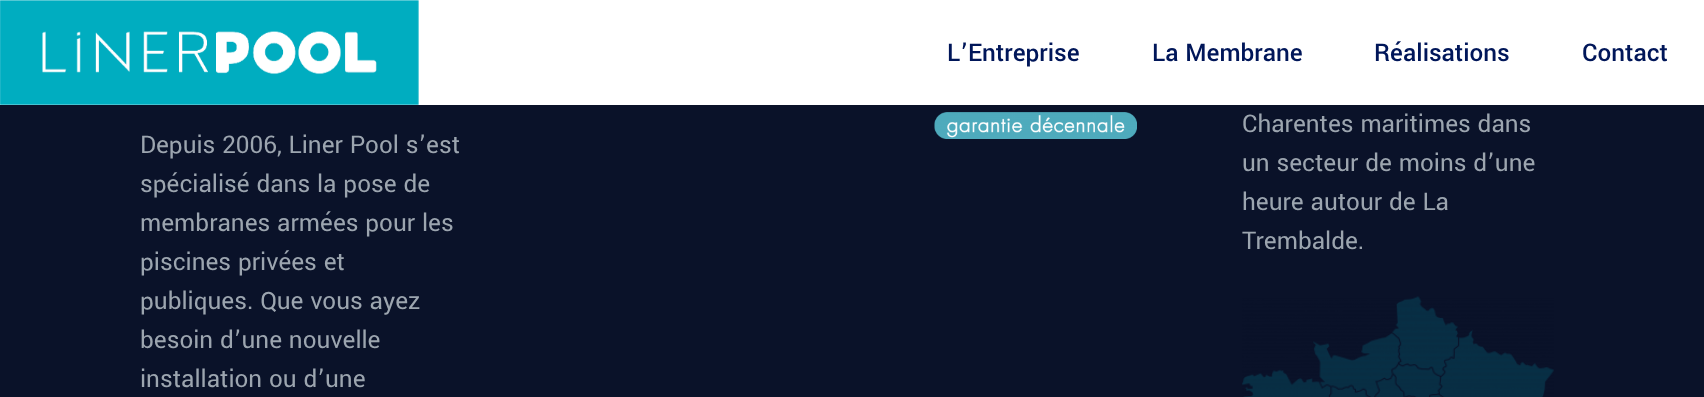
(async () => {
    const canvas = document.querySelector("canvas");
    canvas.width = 1704;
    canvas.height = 397;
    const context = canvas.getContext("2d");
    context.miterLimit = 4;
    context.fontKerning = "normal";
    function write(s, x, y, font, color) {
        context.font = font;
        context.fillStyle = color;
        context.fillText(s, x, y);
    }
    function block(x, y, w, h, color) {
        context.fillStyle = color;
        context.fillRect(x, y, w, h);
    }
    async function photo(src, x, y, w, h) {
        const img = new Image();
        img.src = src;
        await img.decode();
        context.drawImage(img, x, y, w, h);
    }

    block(0, 0, 1704, 397, "rgb(10, 18, 41)");
    block(0, 0, 1704, 105, "rgb(255, 255, 255)");
    await photo("media/1.png", 0, 0, 419, 105);
    write("L’Entreprise", 947, 61, "500 27px Yantramanav", "rgb(0, 22, 89)");
    write("La Membrane", 1152, 61, "500 27px Yantramanav", "rgb(0, 22, 89)");
    write("Réalisations", 1374, 61, "500 27px Yantramanav", "rgb(0, 22, 89)");
    write("Contact", 1582, 61, "500 27px Yantramanav", "rgb(0, 22, 89)");
    write("Depuis 2006, Liner Pool s’est", 140, 153, "27px Yantramanav", "rgb(156, 165, 175)");
    write("spécialisé dans la pose de", 140, 192, "27px Yantramanav", "rgb(156, 165, 175)");
    write("membranes armées pour les", 140, 231, "27px Yantramanav", "rgb(156, 165, 175)");
    write("piscines privées et", 140, 270, "27px Yantramanav", "rgb(156, 165, 175)");
    write("publiques. Que vous ayez", 140, 309, "27px Yantramanav", "rgb(156, 165, 175)");
    write("besoin d’une nouvelle", 140, 348, "27px Yantramanav", "rgb(156, 165, 175)");
    write("installation ou d’une", 140, 387, "27px Yantramanav", "rgb(156, 165, 175)");
    await photo("media/2.png", 934, 112, 203, 27);
    write("Charentes maritimes dans", 1242, 132, "27px Yantramanav", "rgb(156, 165, 175)");
    write("un secteur de moins d’une", 1242, 171, "27px Yantramanav", "rgb(156, 165, 175)");
    write("heure autour de La", 1242, 210, "27px Yantramanav", "rgb(156, 165, 175)");
    write("Trembalde.", 1242, 249, "27px Yantramanav", "rgb(156, 165, 175)");
    await photo("media/3.png", 1242, 296, 312, 101);
})();
